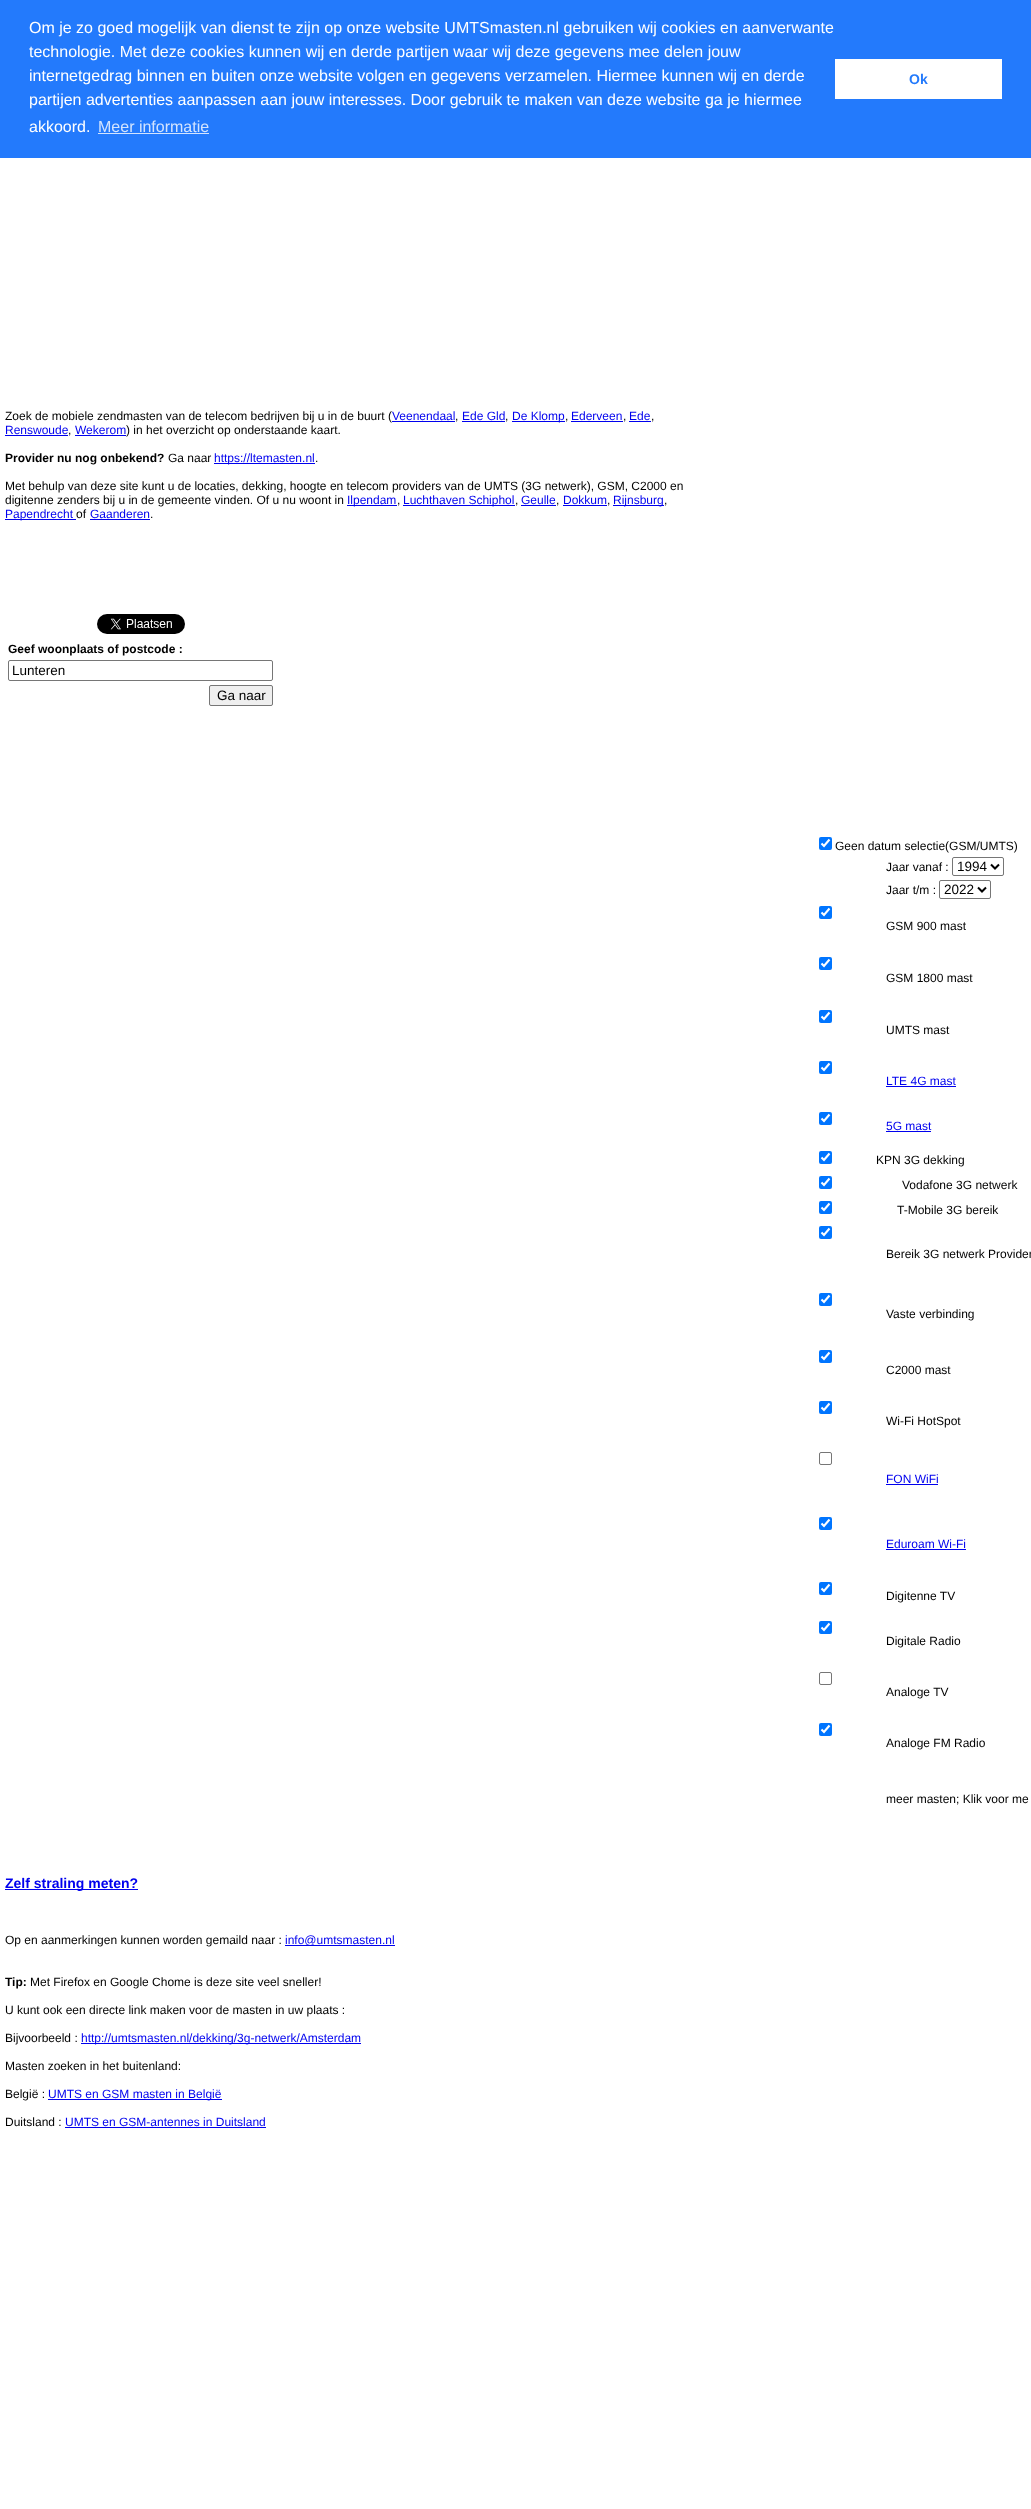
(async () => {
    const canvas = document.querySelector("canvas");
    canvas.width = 1031;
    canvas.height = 2509;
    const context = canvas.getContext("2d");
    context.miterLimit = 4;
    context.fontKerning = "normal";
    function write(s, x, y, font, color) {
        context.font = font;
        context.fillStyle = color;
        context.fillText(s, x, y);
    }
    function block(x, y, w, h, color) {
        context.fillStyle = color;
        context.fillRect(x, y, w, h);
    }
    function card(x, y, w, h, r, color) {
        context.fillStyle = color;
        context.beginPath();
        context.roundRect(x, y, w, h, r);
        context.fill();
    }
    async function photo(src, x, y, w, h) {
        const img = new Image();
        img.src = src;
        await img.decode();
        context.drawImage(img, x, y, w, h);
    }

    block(0, 0, 1031, 2509, "rgb(255, 255, 255)");
    block(0, 0, 1031, 158, "rgb(35, 122, 252)");
    write("Om je zo goed mogelijk van dienst te zijn op onze website UMTSmasten.nl gebruiken wij cookies en aanverwante", 29, 33, "16px Liberation Sans", "rgb(255, 255, 255)");
    write("technologie. Met deze cookies kunnen wij en derde partijen waar wij deze gegevens mee delen jouw", 29, 57, "16px Liberation Sans", "rgb(255, 255, 255)");
    write("internetgedrag binnen en buiten onze website volgen en gegevens verzamelen. Hiermee kunnen wij en derde", 29, 81, "16px Liberation Sans", "rgb(255, 255, 255)");
    write("partijen advertenties aanpassen aan jouw interesses. Door gebruik te maken van deze website ga je hiermee", 29, 105, "16px Liberation Sans", "rgb(255, 255, 255)");
    write("akkoord.", 29, 132, "16px Liberation Sans", "rgb(255, 255, 255)");
    write("Meer informatie", 98, 132, "16px Liberation Sans", "rgb(211, 228, 254)");
    block(98, 133, 111, 1, "rgb(211, 228, 254)");
    block(835, 59, 167, 40, "rgb(255, 255, 255)");
    write("Ok", 909, 84, "bold 14px Liberation Sans", "rgb(35, 122, 252)");
    write("Zoek de mobiele zendmasten van de telecom bedrijven bij u in de buurt (", 5, 420, "12px Liberation Sans", "rgb(0, 0, 0)");
    write("Veenendaal", 392, 420, "12px Liberation Sans", "rgb(0, 0, 238)");
    block(392, 421, 63, 1, "rgb(0, 0, 238)");
    write(",", 455, 420, "12px Liberation Sans", "rgb(0, 0, 0)");
    write("Ede Gld", 462, 420, "12px Liberation Sans", "rgb(0, 0, 238)");
    block(462, 421, 43, 1, "rgb(0, 0, 238)");
    write(",", 505, 420, "12px Liberation Sans", "rgb(0, 0, 0)");
    block(512, 421, 53, 1, "rgb(0, 0, 238)");
    write("De Klomp", 512, 420, "12px Liberation Sans", "rgb(0, 0, 238)");
    write(",", 565, 420, "12px Liberation Sans", "rgb(0, 0, 0)");
    write("Ederveen", 571, 420, "12px Liberation Sans", "rgb(0, 0, 238)");
    block(571, 421, 52, 1, "rgb(0, 0, 238)");
    write(",", 623, 420, "12px Liberation Sans", "rgb(0, 0, 0)");
    write("Ede", 629, 420, "12px Liberation Sans", "rgb(0, 0, 238)");
    block(629, 421, 22, 1, "rgb(0, 0, 238)");
    write(",", 651, 420, "12px Liberation Sans", "rgb(0, 0, 0)");
    write("Renswoude", 5, 434, "12px Liberation Sans", "rgb(0, 0, 238)");
    block(5, 435, 63, 1, "rgb(0, 0, 238)");
    write(",", 68, 434, "12px Liberation Sans", "rgb(0, 0, 0)");
    write("Wekerom", 75, 434, "12px Liberation Sans", "rgb(0, 0, 238)");
    block(75, 435, 51, 1, "rgb(0, 0, 238)");
    write(") in het overzicht op onderstaande kaart.", 126, 434, "12px Liberation Sans", "rgb(0, 0, 0)");
    write("Provider nu nog onbekend?", 5, 462, "bold 12px Liberation Sans", "rgb(0, 0, 0)");
    write("Ga naar", 168, 462, "12px Liberation Sans", "rgb(0, 0, 0)");
    block(214, 463, 101, 1, "rgb(0, 0, 238)");
    write("https://ltemasten.nl", 214, 462, "12px Liberation Sans", "rgb(0, 0, 238)");
    write(".", 315, 462, "12px Liberation Sans", "rgb(0, 0, 0)");
    write("Met behulp van deze site kunt u de locaties, dekking, hoogte en telecom providers van de UMTS (3G netwerk), GSM, C2000 en", 5, 490, "12px Liberation Sans", "rgb(0, 0, 0)");
    write("digitenne zenders bij u in de gemeente vinden. Of u nu woont in", 5, 504, "12px Liberation Sans", "rgb(0, 0, 0)");
    block(347, 505, 50, 1, "rgb(0, 0, 238)");
    write("Ilpendam", 347, 504, "12px Liberation Sans", "rgb(0, 0, 238)");
    write(",", 397, 504, "12px Liberation Sans", "rgb(0, 0, 0)");
    block(403, 505, 112, 1, "rgb(0, 0, 238)");
    write("Luchthaven Schiphol", 403, 504, "12px Liberation Sans", "rgb(0, 0, 238)");
    write(",", 515, 504, "12px Liberation Sans", "rgb(0, 0, 0)");
    write("Geulle", 521, 504, "12px Liberation Sans", "rgb(0, 0, 238)");
    block(521, 505, 35, 1, "rgb(0, 0, 238)");
    write(",", 556, 504, "12px Liberation Sans", "rgb(0, 0, 0)");
    write("Dokkum", 563, 504, "12px Liberation Sans", "rgb(0, 0, 238)");
    block(563, 505, 44, 1, "rgb(0, 0, 238)");
    write(",", 607, 504, "12px Liberation Sans", "rgb(0, 0, 0)");
    block(613, 505, 51, 1, "rgb(0, 0, 238)");
    write("Rijnsburg", 613, 504, "12px Liberation Sans", "rgb(0, 0, 238)");
    write(",", 664, 504, "12px Liberation Sans", "rgb(0, 0, 0)");
    block(5, 519, 71, 1, "rgb(0, 0, 238)");
    write("Papendrecht", 5, 518, "12px Liberation Sans", "rgb(0, 0, 238)");
    write("of", 76, 518, "12px Liberation Sans", "rgb(0, 0, 0)");
    write("Gaanderen", 90, 518, "12px Liberation Sans", "rgb(0, 0, 238)");
    block(90, 519, 60, 1, "rgb(0, 0, 238)");
    write(".", 150, 518, "12px Liberation Sans", "rgb(0, 0, 0)");
    await photo("media/1.png", 97, 614, 88, 20);
    write("Geef woonplaats of postcode :", 8, 653, "bold 12px Liberation Sans", "rgb(0, 0, 0)");
    context.beginPath();
    context.roundRect(8.5, 660.5, 264, 20, 1.5);
    context.strokeStyle = "rgb(118, 118, 118)";
    context.stroke();
    write("Lunteren", 12, 675, "13.5px Liberation Sans", "rgb(0, 0, 0)");
    context.fillStyle = "rgb(239, 239, 239)";
    context.beginPath();
    context.roundRect(209.5, 685.5, 63, 20, 1.5);
    context.fill();
    context.stroke();
    write("Ga naar", 217, 700, "13.5px Liberation Sans", "rgb(0, 0, 0)");
    card(819, 837, 13, 13, 2, "rgb(0, 117, 255)");
    context.beginPath();
    context.moveTo(821.5, 843.5);
    context.lineTo(824, 846);
    context.lineTo(829.5, 839.5);
    context.strokeStyle = "rgb(255, 255, 255)";
    context.lineWidth = 2.1;
    context.stroke();
    write("Geen datum selectie(GSM/UMTS)", 835, 850, "12px Liberation Sans", "rgb(0, 0, 0)");
    write("Jaar vanaf :", 886, 871, "12px Liberation Sans", "rgb(0, 0, 0)");
    context.beginPath();
    context.roundRect(952.5, 857.5, 51, 18, 1.5);
    context.strokeStyle = "rgb(118, 118, 118)";
    context.lineWidth = 1;
    context.stroke();
    context.beginPath();
    context.moveTo(991, 864.5);
    context.lineTo(995, 868.5);
    context.lineTo(999, 864.5);
    context.strokeStyle = "rgb(0, 0, 0)";
    context.lineWidth = 2;
    context.stroke();
    write("1994", 957, 871, "13.5px Liberation Sans", "rgb(0, 0, 0)");
    write("Jaar t/m :", 886, 894, "12px Liberation Sans", "rgb(0, 0, 0)");
    context.beginPath();
    context.roundRect(939.5, 880.5, 51, 18, 1.5);
    context.strokeStyle = "rgb(118, 118, 118)";
    context.lineWidth = 1;
    context.stroke();
    context.beginPath();
    context.moveTo(978, 887.5);
    context.lineTo(982, 891.5);
    context.lineTo(986, 887.5);
    context.strokeStyle = "rgb(0, 0, 0)";
    context.lineWidth = 2;
    context.stroke();
    write("2022", 944, 894, "13.5px Liberation Sans", "rgb(0, 0, 0)");
    card(819, 906, 13, 13, 2, "rgb(0, 117, 255)");
    context.beginPath();
    context.moveTo(821.5, 912.5);
    context.lineTo(824, 915);
    context.lineTo(829.5, 908.5);
    context.strokeStyle = "rgb(255, 255, 255)";
    context.lineWidth = 2.1;
    context.stroke();
    write("GSM 900 mast", 886, 930, "12px Liberation Sans", "rgb(0, 0, 0)");
    card(819, 957, 13, 13, 2, "rgb(0, 117, 255)");
    context.beginPath();
    context.moveTo(821.5, 963.5);
    context.lineTo(824, 966);
    context.lineTo(829.5, 959.5);
    context.stroke();
    write("GSM 1800 mast", 886, 982, "12px Liberation Sans", "rgb(0, 0, 0)");
    card(819, 1010, 13, 13, 2, "rgb(0, 117, 255)");
    context.beginPath();
    context.moveTo(821.5, 1016.5);
    context.lineTo(824, 1019);
    context.lineTo(829.5, 1012.5);
    context.stroke();
    write("UMTS mast", 886, 1034, "12px Liberation Sans", "rgb(0, 0, 0)");
    card(819, 1061, 13, 13, 2, "rgb(0, 117, 255)");
    context.beginPath();
    context.moveTo(821.5, 1067.5);
    context.lineTo(824, 1070);
    context.lineTo(829.5, 1063.5);
    context.stroke();
    write("LTE 4G mast", 886, 1085, "12px Liberation Sans", "rgb(0, 0, 238)");
    block(886, 1086, 70, 1, "rgb(0, 0, 238)");
    card(819, 1112, 13, 13, 2, "rgb(0, 117, 255)");
    context.beginPath();
    context.moveTo(821.5, 1118.5);
    context.lineTo(824, 1121);
    context.lineTo(829.5, 1114.5);
    context.stroke();
    write("5G mast", 886, 1130, "12px Liberation Sans", "rgb(0, 0, 238)");
    block(886, 1131, 45, 1, "rgb(0, 0, 238)");
    card(819, 1151, 13, 13, 2, "rgb(0, 117, 255)");
    context.beginPath();
    context.moveTo(821.5, 1157.5);
    context.lineTo(824, 1160);
    context.lineTo(829.5, 1153.5);
    context.stroke();
    write("KPN 3G dekking", 876, 1164, "12px Liberation Sans", "rgb(0, 0, 0)");
    card(819, 1176, 13, 13, 2, "rgb(0, 117, 255)");
    context.beginPath();
    context.moveTo(821.5, 1182.5);
    context.lineTo(824, 1185);
    context.lineTo(829.5, 1178.5);
    context.stroke();
    write("Vodafone 3G netwerk", 902, 1189, "12px Liberation Sans", "rgb(0, 0, 0)");
    card(819, 1201, 13, 13, 2, "rgb(0, 117, 255)");
    context.beginPath();
    context.moveTo(821.5, 1207.5);
    context.lineTo(824, 1210);
    context.lineTo(829.5, 1203.5);
    context.stroke();
    write("T-Mobile 3G bereik", 897, 1214, "12px Liberation Sans", "rgb(0, 0, 0)");
    card(819, 1226, 13, 13, 2, "rgb(0, 117, 255)");
    context.beginPath();
    context.moveTo(821.5, 1232.5);
    context.lineTo(824, 1235);
    context.lineTo(829.5, 1228.5);
    context.stroke();
    write("Bereik 3G netwerk Provider", 886, 1258, "12px Liberation Sans", "rgb(0, 0, 0)");
    card(819, 1293, 13, 13, 2, "rgb(0, 117, 255)");
    context.beginPath();
    context.moveTo(821.5, 1299.5);
    context.lineTo(824, 1302);
    context.lineTo(829.5, 1295.5);
    context.stroke();
    write("Vaste verbinding", 886, 1318, "12px Liberation Sans", "rgb(0, 0, 0)");
    card(819, 1350, 13, 13, 2, "rgb(0, 117, 255)");
    context.beginPath();
    context.moveTo(821.5, 1356.5);
    context.lineTo(824, 1359);
    context.lineTo(829.5, 1352.5);
    context.stroke();
    write("C2000 mast", 886, 1374, "12px Liberation Sans", "rgb(0, 0, 0)");
    card(819, 1401, 13, 13, 2, "rgb(0, 117, 255)");
    context.beginPath();
    context.moveTo(821.5, 1407.5);
    context.lineTo(824, 1410);
    context.lineTo(829.5, 1403.5);
    context.stroke();
    write("Wi-Fi HotSpot", 886, 1425, "12px Liberation Sans", "rgb(0, 0, 0)");
    context.beginPath();
    context.roundRect(819.5, 1452.5, 12, 12, 1.5);
    context.strokeStyle = "rgb(118, 118, 118)";
    context.lineWidth = 1;
    context.stroke();
    write("FON WiFi", 886, 1483, "12px Liberation Sans", "rgb(0, 0, 238)");
    block(886, 1484, 52, 1, "rgb(0, 0, 238)");
    card(819, 1517, 13, 13, 2, "rgb(0, 117, 255)");
    context.beginPath();
    context.moveTo(821.5, 1523.5);
    context.lineTo(824, 1526);
    context.lineTo(829.5, 1519.5);
    context.strokeStyle = "rgb(255, 255, 255)";
    context.lineWidth = 2.1;
    context.stroke();
    write("Eduroam Wi-Fi", 886, 1548, "12px Liberation Sans", "rgb(0, 0, 238)");
    block(886, 1549, 80, 1, "rgb(0, 0, 238)");
    card(819, 1582, 13, 13, 2, "rgb(0, 117, 255)");
    context.beginPath();
    context.moveTo(821.5, 1588.5);
    context.lineTo(824, 1591);
    context.lineTo(829.5, 1584.5);
    context.stroke();
    write("Digitenne TV", 886, 1600, "12px Liberation Sans", "rgb(0, 0, 0)");
    card(819, 1621, 13, 13, 2, "rgb(0, 117, 255)");
    context.beginPath();
    context.moveTo(821.5, 1627.5);
    context.lineTo(824, 1630);
    context.lineTo(829.5, 1623.5);
    context.stroke();
    write("Digitale Radio", 886, 1645, "12px Liberation Sans", "rgb(0, 0, 0)");
    context.beginPath();
    context.roundRect(819.5, 1672.5, 12, 12, 1.5);
    context.strokeStyle = "rgb(118, 118, 118)";
    context.lineWidth = 1;
    context.stroke();
    write("Analoge TV", 886, 1696, "12px Liberation Sans", "rgb(0, 0, 0)");
    card(819, 1723, 13, 13, 2, "rgb(0, 117, 255)");
    context.beginPath();
    context.moveTo(821.5, 1729.5);
    context.lineTo(824, 1732);
    context.lineTo(829.5, 1725.5);
    context.strokeStyle = "rgb(255, 255, 255)";
    context.lineWidth = 2.1;
    context.stroke();
    write("Analoge FM Radio", 886, 1747, "12px Liberation Sans", "rgb(0, 0, 0)");
    write("meer masten; Klik voor me", 886, 1803, "12px Liberation Sans", "rgb(0, 0, 0)");
    block(5, 1889, 133, 1, "rgb(0, 0, 238)");
    write("Zelf straling meten?", 5, 1888, "bold 14px Liberation Sans", "rgb(0, 0, 238)");
    write("Op en aanmerkingen kunnen worden gemaild naar :", 5, 1944, "12px Liberation Sans", "rgb(0, 0, 0)");
    block(285, 1945, 110, 1, "rgb(0, 0, 238)");
    write("info@umtsmasten.nl", 285, 1944, "12px Liberation Sans", "rgb(0, 0, 238)");
    write("Tip:", 5, 1986, "bold 12px Liberation Sans", "rgb(0, 0, 0)");
    write("Met Firefox en Google Chome is deze site veel sneller!", 30, 1986, "12px Liberation Sans", "rgb(0, 0, 0)");
    write("U kunt ook een directe link maken voor de masten in uw plaats :", 5, 2014, "12px Liberation Sans", "rgb(0, 0, 0)");
    write("Bijvoorbeeld :", 5, 2042, "12px Liberation Sans", "rgb(0, 0, 0)");
    block(81, 2043, 280, 1, "rgb(0, 0, 238)");
    write("http://umtsmasten.nl/dekking/3g-netwerk/Amsterdam", 81, 2042, "12px Liberation Sans", "rgb(0, 0, 238)");
    write("Masten zoeken in het buitenland:", 5, 2070, "12px Liberation Sans", "rgb(0, 0, 0)");
    write("België :", 5, 2098, "12px Liberation Sans", "rgb(0, 0, 0)");
    block(48, 2099, 174, 1, "rgb(0, 0, 238)");
    write("UMTS en GSM masten in België", 48, 2098, "12px Liberation Sans", "rgb(0, 0, 238)");
    write("Duitsland :", 5, 2126, "12px Liberation Sans", "rgb(0, 0, 0)");
    write("UMTS en GSM-antennes in Duitsland", 65, 2126, "12px Liberation Sans", "rgb(0, 0, 238)");
    block(65, 2127, 201, 1, "rgb(0, 0, 238)");
})();
